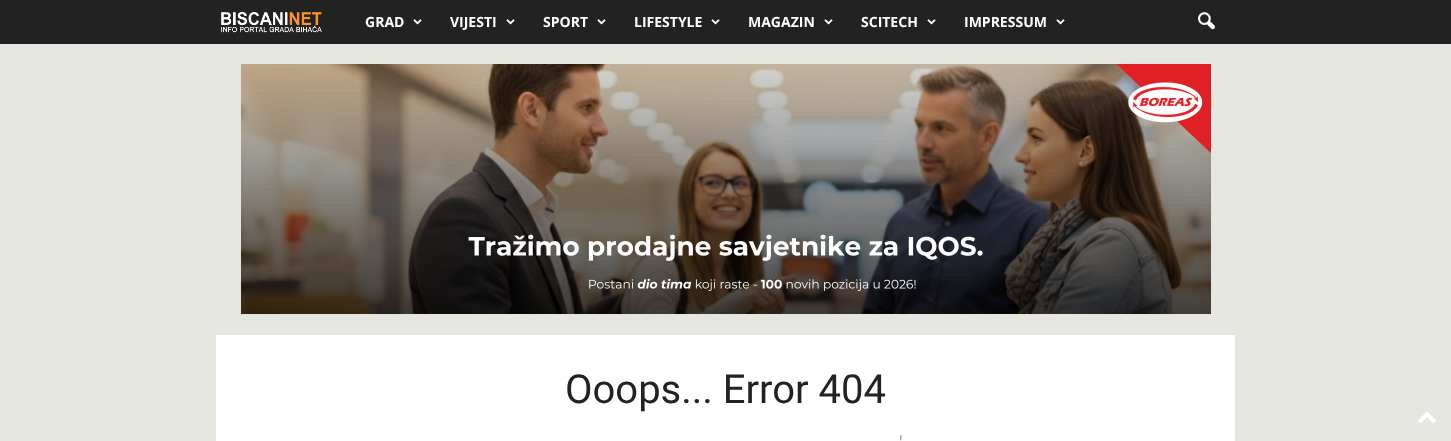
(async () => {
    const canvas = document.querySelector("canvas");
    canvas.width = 1451;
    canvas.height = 441;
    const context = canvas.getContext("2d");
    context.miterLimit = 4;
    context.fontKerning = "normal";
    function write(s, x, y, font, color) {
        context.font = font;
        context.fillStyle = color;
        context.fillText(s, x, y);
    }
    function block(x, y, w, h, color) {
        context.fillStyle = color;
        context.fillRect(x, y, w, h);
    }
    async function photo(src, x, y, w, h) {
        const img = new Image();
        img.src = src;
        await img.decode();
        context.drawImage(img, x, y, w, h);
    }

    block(0, 0, 1451, 441, "rgb(229, 230, 224)");
    block(0, 0, 1451, 44, "rgb(34, 34, 34)");
    await photo("media/1.png", 221, 11, 101, 22);
    write("GRAD", 365, 27, "bold 14px Open Sans", "rgb(255, 255, 255)");
    await photo("media/2.png", 413, 19, 9, 6);
    write("VIJESTI", 450, 27, "bold 14px Open Sans", "rgb(255, 255, 255)");
    await photo("media/2.png", 506, 19, 9, 6);
    write("SPORT", 543, 27, "bold 14px Open Sans", "rgb(255, 255, 255)");
    await photo("media/2.png", 597, 19, 9, 6);
    write("LIFESTYLE", 634, 27, "bold 14px Open Sans", "rgb(255, 255, 255)");
    await photo("media/2.png", 711, 19, 9, 6);
    write("MAGAZIN", 748, 27, "bold 14px Open Sans", "rgb(255, 255, 255)");
    await photo("media/2.png", 824, 19, 9, 6);
    write("SCITECH", 861, 27, "bold 14px Open Sans", "rgb(255, 255, 255)");
    await photo("media/2.png", 927, 19, 9, 6);
    write("IMPRESSUM", 964, 27, "bold 14px Open Sans", "rgb(255, 255, 255)");
    await photo("media/2.png", 1056, 19, 9, 6);
    await photo("media/3.png", 1198, 12, 17, 18);
    block(215, 334, 1021, 1, "rgb(230, 230, 230)");
    await photo("media/4.png", 241, 64, 970, 250);
    block(216, 335, 1019, 106, "rgb(255, 255, 255)");
    block(215, 335, 1, 106, "rgb(230, 230, 230)");
    write("Ooops... Error 404", 565, 403, "40px Roboto", "rgb(34, 34, 34)");
    write("'", 899, 451, "21px Roboto", "rgb(166, 166, 166)");
    block(1235, 335, 1, 106, "rgb(230, 230, 230)");
    await photo("media/5.png", 1418, 411, 18, 12);
})();
